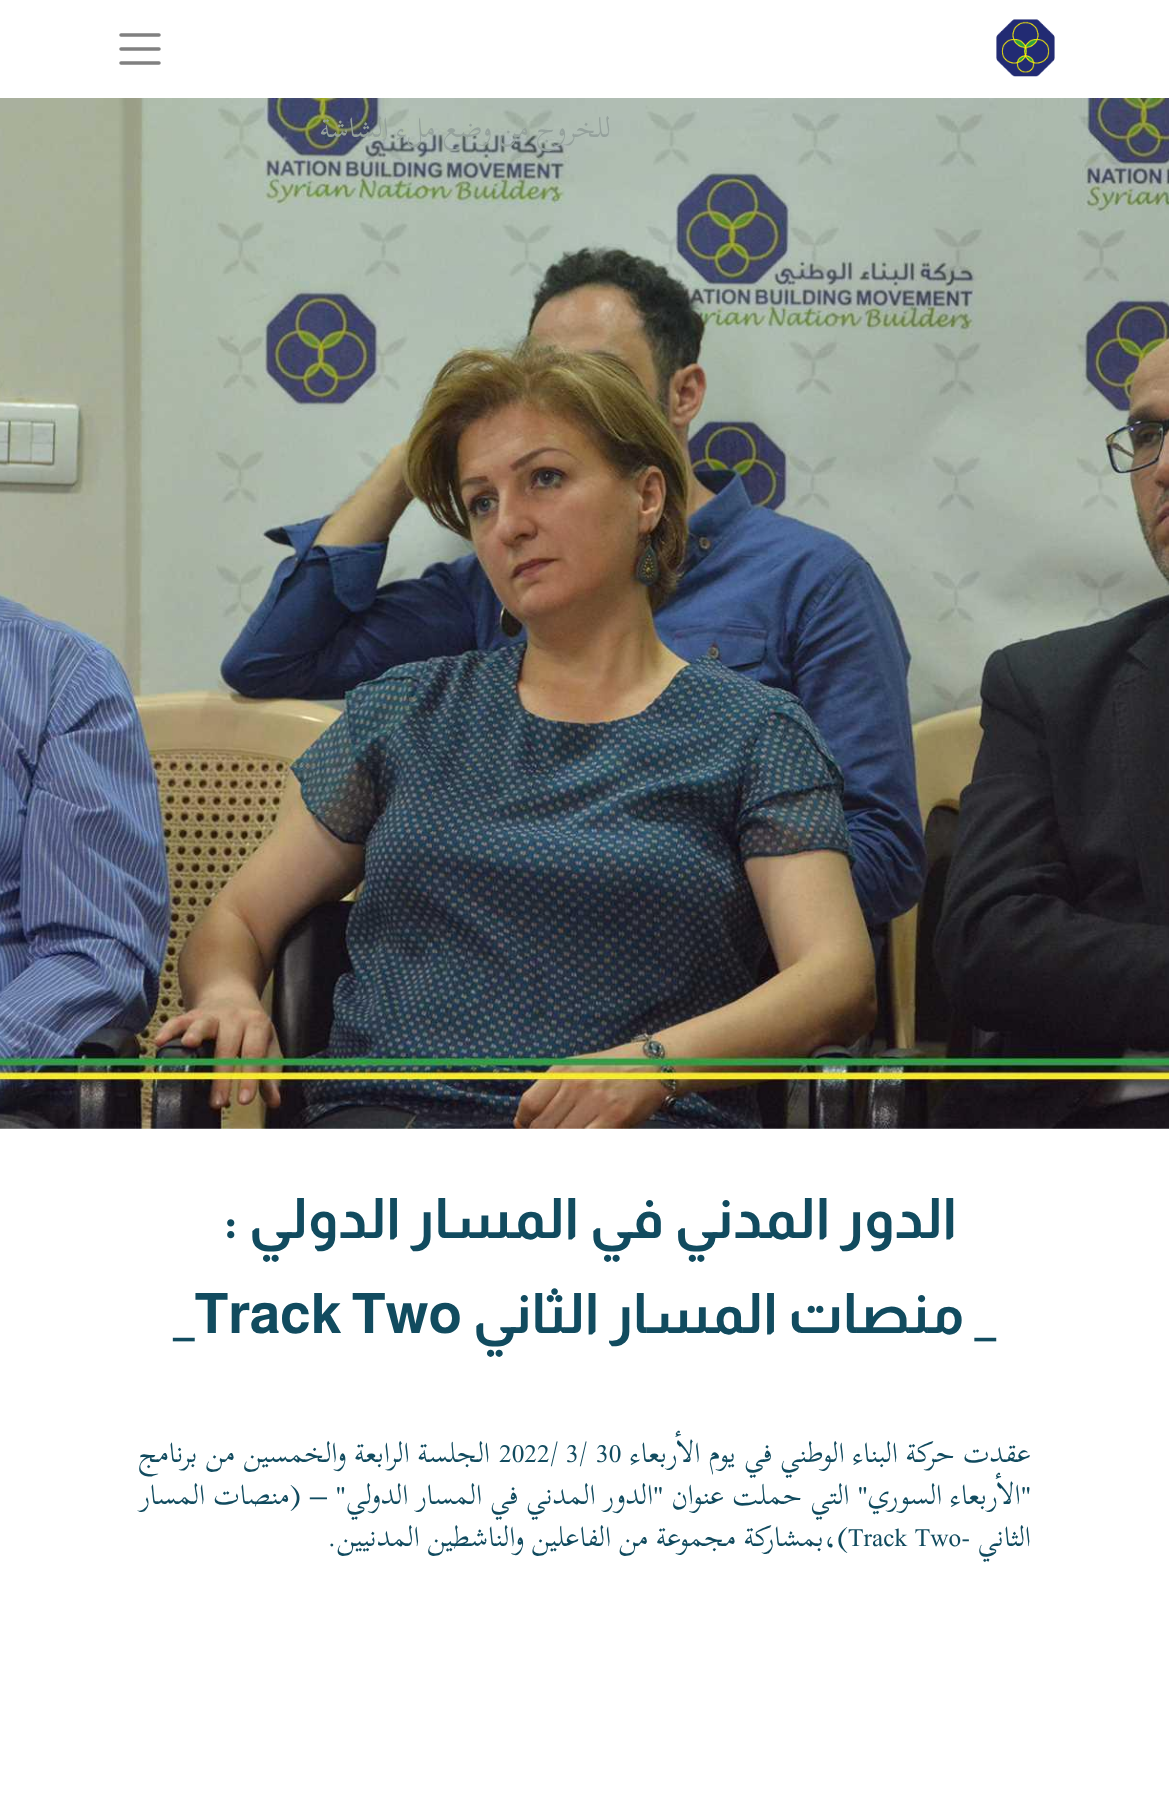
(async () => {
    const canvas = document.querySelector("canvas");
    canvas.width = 1169;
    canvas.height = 1793;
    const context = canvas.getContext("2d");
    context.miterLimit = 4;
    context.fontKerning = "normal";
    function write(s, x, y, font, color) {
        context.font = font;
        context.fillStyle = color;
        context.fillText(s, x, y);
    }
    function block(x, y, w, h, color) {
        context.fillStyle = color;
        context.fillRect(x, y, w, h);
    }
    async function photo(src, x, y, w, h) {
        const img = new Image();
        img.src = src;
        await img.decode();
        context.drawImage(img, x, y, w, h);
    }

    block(0, 0, 1169, 1793, "rgb(255, 255, 255)");
    await photo("media/2.png", 0, 98, 1169, 1031);
    context.direction = "rtl";
    write("للخروج من وضع ملء الشاشة", 611, 137, "28px Scheherazade New", "rgb(148, 160, 155)");
    await photo("media/1.png", 996, 19, 59, 58);
    context.beginPath();
    context.moveTo(121, 35);
    context.lineTo(159, 35);
    context.moveTo(121, 49);
    context.lineTo(159, 49);
    context.moveTo(121, 63);
    context.lineTo(159, 63);
    context.strokeStyle = "rgb(128, 128, 128)";
    context.lineWidth = 3.5;
    context.lineCap = "round";
    context.stroke();
    write("الدور المدني في المسار الدولي :", 957, 1238, "bold 56px Almarai", "rgb(17, 75, 95)");
    write("_ منصات المسار الثاني", 996, 1333, "bold 56px Almarai", "rgb(17, 75, 95)");
    context.direction = "ltr";
    write("_Track Two", 173, 1333, "bold 56px Almarai", "rgb(17, 75, 95)");
    context.wordSpacing = "0.5px";
    context.direction = "rtl";
    write("عقدت حركة البناء الوطني في يوم الأربعاء", 1031, 1462, "28px Scheherazade New", "rgb(17, 75, 95)");
    context.wordSpacing = "0px";
    context.direction = "ltr";
    write("30", 596, 1462, "28px Scheherazade New", "rgb(17, 75, 95)");
    write("3/", 566, 1462, "28px Scheherazade New", "rgb(17, 75, 95)");
    write("2022/", 499, 1462, "28px Scheherazade New", "rgb(17, 75, 95)");
    context.wordSpacing = "0.5px";
    context.direction = "rtl";
    write("الجلسة الرابعة والخمسين من برنامج", 490, 1462, "28px Scheherazade New", "rgb(17, 75, 95)");
    write("\"الأربعاء السوري\" التي حملت عنوان \"الدور المدني في المسار الدولي\" – (منصات المسار", 1031, 1504, "28px Scheherazade New", "rgb(17, 75, 95)");
    context.wordSpacing = "0px";
    write("الثاني -", 1031, 1546, "28px Scheherazade New", "rgb(17, 75, 95)");
    context.direction = "ltr";
    write("Track Two", 848, 1546, "28px Scheherazade New", "rgb(17, 75, 95)");
    context.direction = "rtl";
    write(")،بمشاركة مجموعة من الفاعلين والناشطين المدنيين.", 848, 1546, "28px Scheherazade New", "rgb(17, 75, 95)");
})();
